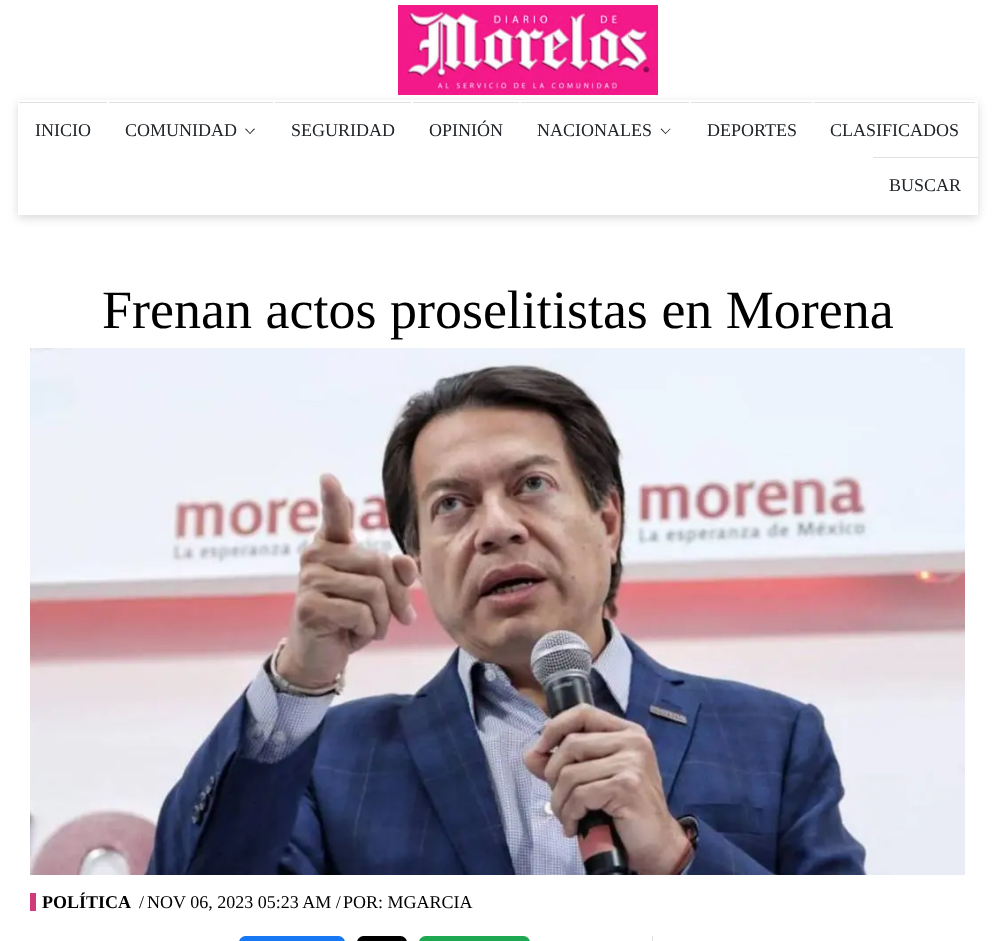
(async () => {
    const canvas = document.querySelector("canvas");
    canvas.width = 995;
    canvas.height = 941;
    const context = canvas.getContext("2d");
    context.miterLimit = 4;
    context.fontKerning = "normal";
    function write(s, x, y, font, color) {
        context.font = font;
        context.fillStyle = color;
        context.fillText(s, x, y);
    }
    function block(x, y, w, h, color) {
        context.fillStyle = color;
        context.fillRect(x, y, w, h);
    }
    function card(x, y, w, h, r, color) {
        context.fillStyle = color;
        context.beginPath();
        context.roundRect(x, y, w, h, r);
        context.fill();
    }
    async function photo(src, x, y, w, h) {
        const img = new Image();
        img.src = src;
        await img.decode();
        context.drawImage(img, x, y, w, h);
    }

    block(0, 0, 995, 941, "rgb(255, 255, 255)");
    context.save();
    context.beginPath();
    context.moveTo(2, 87);
    context.lineTo(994, 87);
    context.lineTo(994, 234);
    context.lineTo(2, 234);
    context.closePath();
    context.moveTo(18, 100);
    context.lineTo(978, 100);
    context.lineTo(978, 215);
    context.lineTo(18, 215);
    context.closePath();
    context.clip("evenodd");
    context.fillStyle = "rgba(0, 0, 0, 0.15)";
    context.filter = "blur(5px)";
    context.beginPath();
    context.rect(18, 103, 960, 115);
    context.fill();
    context.filter = "none";
    context.restore();
    await photo("media/1.png", 398, 5, 260, 90);
    block(18, 102, 958, 1, "rgb(222, 226, 230)");
    block(107, 102, 2, 1, "rgb(255, 255, 255)");
    block(18, 102, 1, 1, "rgb(255, 255, 255)");
    write("INICIO", 35, 136, "18px Liberation Serif", "rgb(33, 37, 41)");
    block(273, 102, 2, 1, "rgb(255, 255, 255)");
    write("COMUNIDAD", 125, 136, "18px Liberation Serif", "rgb(33, 37, 41)");
    context.beginPath();
    context.moveTo(254, 128.5);
    context.lineTo(255, 129);
    context.lineTo(250, 134);
    context.lineTo(249.5, 133.5);
    context.closePath();
    context.fill();
    context.beginPath();
    context.moveTo(246, 128.5);
    context.lineTo(250.5, 133.5);
    context.lineTo(250, 134);
    context.lineTo(245, 129);
    context.closePath();
    context.fill();
    block(411, 102, 2, 1, "rgb(255, 255, 255)");
    write("SEGURIDAD", 291, 136, "18px Liberation Serif", "rgb(33, 37, 41)");
    block(519, 102, 2, 1, "rgb(255, 255, 255)");
    write("OPINIÓN", 429, 136, "18px Liberation Serif", "rgb(33, 37, 41)");
    block(689, 102, 2, 1, "rgb(255, 255, 255)");
    write("NACIONALES", 537, 136, "18px Liberation Serif", "rgb(33, 37, 41)");
    context.beginPath();
    context.moveTo(670, 128.5);
    context.lineTo(670.5, 129);
    context.lineTo(665.5, 134);
    context.lineTo(665, 133.5);
    context.closePath();
    context.fill();
    context.beginPath();
    context.moveTo(661.5, 128.5);
    context.lineTo(666, 133.5);
    context.lineTo(665.5, 134);
    context.lineTo(660.5, 129);
    context.closePath();
    context.fill();
    block(812, 102, 2, 1, "rgb(255, 255, 255)");
    write("DEPORTES", 707, 136, "18px Liberation Serif", "rgb(33, 37, 41)");
    block(975, 102, 1, 1, "rgb(255, 255, 255)");
    write("CLASIFICADOS", 830, 136, "18px Liberation Serif", "rgb(33, 37, 41)");
    block(873, 157, 105, 1, "rgb(222, 226, 230)");
    write("BUSCAR", 889, 191, "18px Liberation Serif", "rgb(33, 37, 41)");
    write("Frenan actos proselitistas en Morena", 102, 328, "54px Liberation Serif", "rgb(0, 0, 0)");
    await photo("media/2.png", 30, 348, 935, 527);
    block(30, 893, 6, 18, "rgb(209, 58, 122)");
    write("POLÍTICA", 42, 908, "bold 18px Liberation Serif", "rgb(0, 0, 0)");
    write("/", 139, 908, "18px Liberation Serif", "rgb(0, 0, 0)");
    write("NOV 06, 2023 05:23 AM /", 147, 908, "18px Liberation Serif", "rgb(0, 0, 0)");
    write("POR: MGARCIA", 343, 908, "18px Liberation Serif", "rgb(0, 0, 0)");
    block(652, 936, 1, 5, "rgb(226, 226, 226)");
    card(239, 936, 106, 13, 8, "rgb(24, 119, 242)");
    card(357, 936, 50, 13, 8, "rgb(0, 0, 0)");
    card(419, 936, 111, 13, 8, "rgb(29, 168, 81)");
})();
